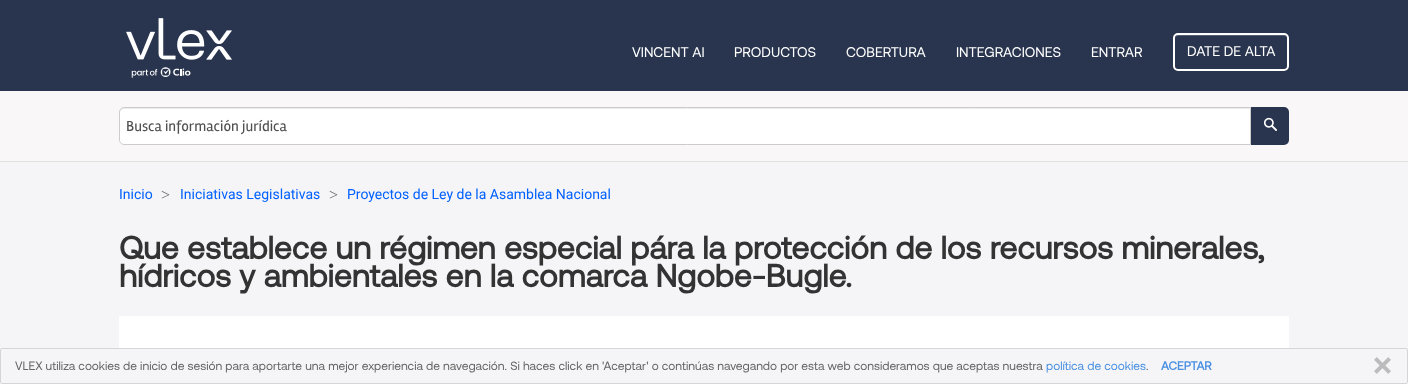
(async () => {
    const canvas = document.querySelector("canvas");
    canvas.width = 1408;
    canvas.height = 384;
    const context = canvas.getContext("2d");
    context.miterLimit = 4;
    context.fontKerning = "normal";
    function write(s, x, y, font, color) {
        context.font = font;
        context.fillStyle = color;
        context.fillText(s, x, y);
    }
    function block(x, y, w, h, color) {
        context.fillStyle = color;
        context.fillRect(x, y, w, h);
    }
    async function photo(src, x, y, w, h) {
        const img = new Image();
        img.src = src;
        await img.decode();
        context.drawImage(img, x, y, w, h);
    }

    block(0, 0, 1408, 384, "rgb(245, 245, 247)");
    block(0, 0, 1408, 91, "rgb(41, 53, 78)");
    await photo("media/1.png", 126, 18, 106, 60);
    write("VINCENT AI", 632, 57, "14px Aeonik", "rgb(255, 255, 255)");
    write("PRODUCTOS", 734, 57, "14px Aeonik", "rgb(255, 255, 255)");
    write("COBERTURA", 846, 57, "14px Aeonik", "rgb(255, 255, 255)");
    write("INTEGRACIONES", 956, 57, "14px Aeonik", "rgb(255, 255, 255)");
    write("ENTRAR", 1091, 57, "14px Aeonik", "rgb(255, 255, 255)");
    context.fillStyle = "rgb(84, 93, 113)";
    context.beginPath();
    context.moveTo(1178, 36);
    context.lineTo(1284, 36);
    context.bezierCurveTo(1286, 36, 1287, 37, 1287, 39);
    context.bezierCurveTo(1287, 37, 1286, 35, 1284, 35);
    context.lineTo(1196, 35);
    context.bezierCurveTo(1194, 35, 1175, 30, 1175, 39);
    context.bezierCurveTo(1175, 37, 1176, 36, 1178, 36);
    context.closePath();
    context.fill();
    context.beginPath();
    context.roundRect(1174, 34, 114, 36, 4);
    context.strokeStyle = "rgb(255, 255, 255)";
    context.lineWidth = 2;
    context.stroke();
    write("DATE DE ALTA", 1187, 56, "14px Aeonik", "rgb(255, 255, 255)");
    block(0, 91, 1408, 70, "rgb(249, 247, 247)");
    block(0, 161, 1408, 1, "rgb(225, 225, 225)");
    context.fillStyle = "rgb(255, 255, 255)";
    context.beginPath();
    context.roundRect(119, 107, 1132, 38, [5, 0, 0, 5]);
    context.fill();
    context.fillStyle = "rgb(236, 236, 236)";
    context.beginPath();
    context.moveTo(124, 109);
    context.lineTo(1250, 109);
    context.lineTo(1250, 108);
    context.lineTo(124, 108);
    context.bezierCurveTo(121, 108, 120, 110, 120, 113);
    context.bezierCurveTo(120, 111, 122, 109, 124, 109);
    context.closePath();
    context.fill();
    context.beginPath();
    context.roundRect(119.5, 107.5, 1131, 37, [4.5, 0, 0, 4.5]);
    context.strokeStyle = "rgb(204, 204, 204)";
    context.lineWidth = 1;
    context.stroke();
    write("Busca información jurídica", 126, 131, "15px Rambla", "rgb(80, 80, 80)");
    context.fillStyle = "rgb(41, 53, 78)";
    context.beginPath();
    context.roundRect(1251, 107, 38, 38, [0, 5, 5, 0]);
    context.fill();
    await photo("media/2.png", 1263, 117, 14, 14);
    write("Inicio", 119, 199, "14px Roboto", "rgb(1, 97, 255)");
    write(">", 161, 200, "16px Liberation Serif", "rgb(113, 113, 122)");
    write("Iniciativas Legislativas", 180, 199, "14px Roboto", "rgb(1, 97, 255)");
    write(">", 329, 200, "16px Liberation Serif", "rgb(113, 113, 122)");
    write("Proyectos de Ley de la Asamblea Nacional", 347, 199, "14px Roboto", "rgb(1, 97, 255)");
    write("Que establece un régimen especial pára la protección de los recursos minerales,", 119, 259, "bold 32px Aeonik", "rgb(51, 51, 51)");
    write("hídricos y ambientales en la comarca Ngobe-Bugle.", 119, 287, "bold 32px Aeonik", "rgb(51, 51, 51)");
    block(119, 316, 1170, 32, "rgb(255, 255, 255)");
    context.beginPath();
    context.roundRect(0.5, 348.5, 1407, 35, 1.5);
    context.strokeStyle = "rgb(213, 213, 213)";
    context.stroke();
    write("VLEX utiliza cookies de inicio de sesión para aportarte una mejor experiencia de navegación. Si haces click en 'Aceptar' o continúas navegando por esta web consideramos que aceptas nuestra", 15, 370, "12px Aeonik", "rgb(102, 102, 102)");
    write("política de cookies", 1046, 370, "12px Aeonik", "rgb(74, 144, 226)");
    write(".", 1146, 370, "12px Aeonik", "rgb(102, 102, 102)");
    write("ACEPTAR", 1161, 370, "bold 12px Aeonik", "rgb(74, 144, 226)");
    await photo("media/3.png", 1374, 357, 17, 17);
})();
